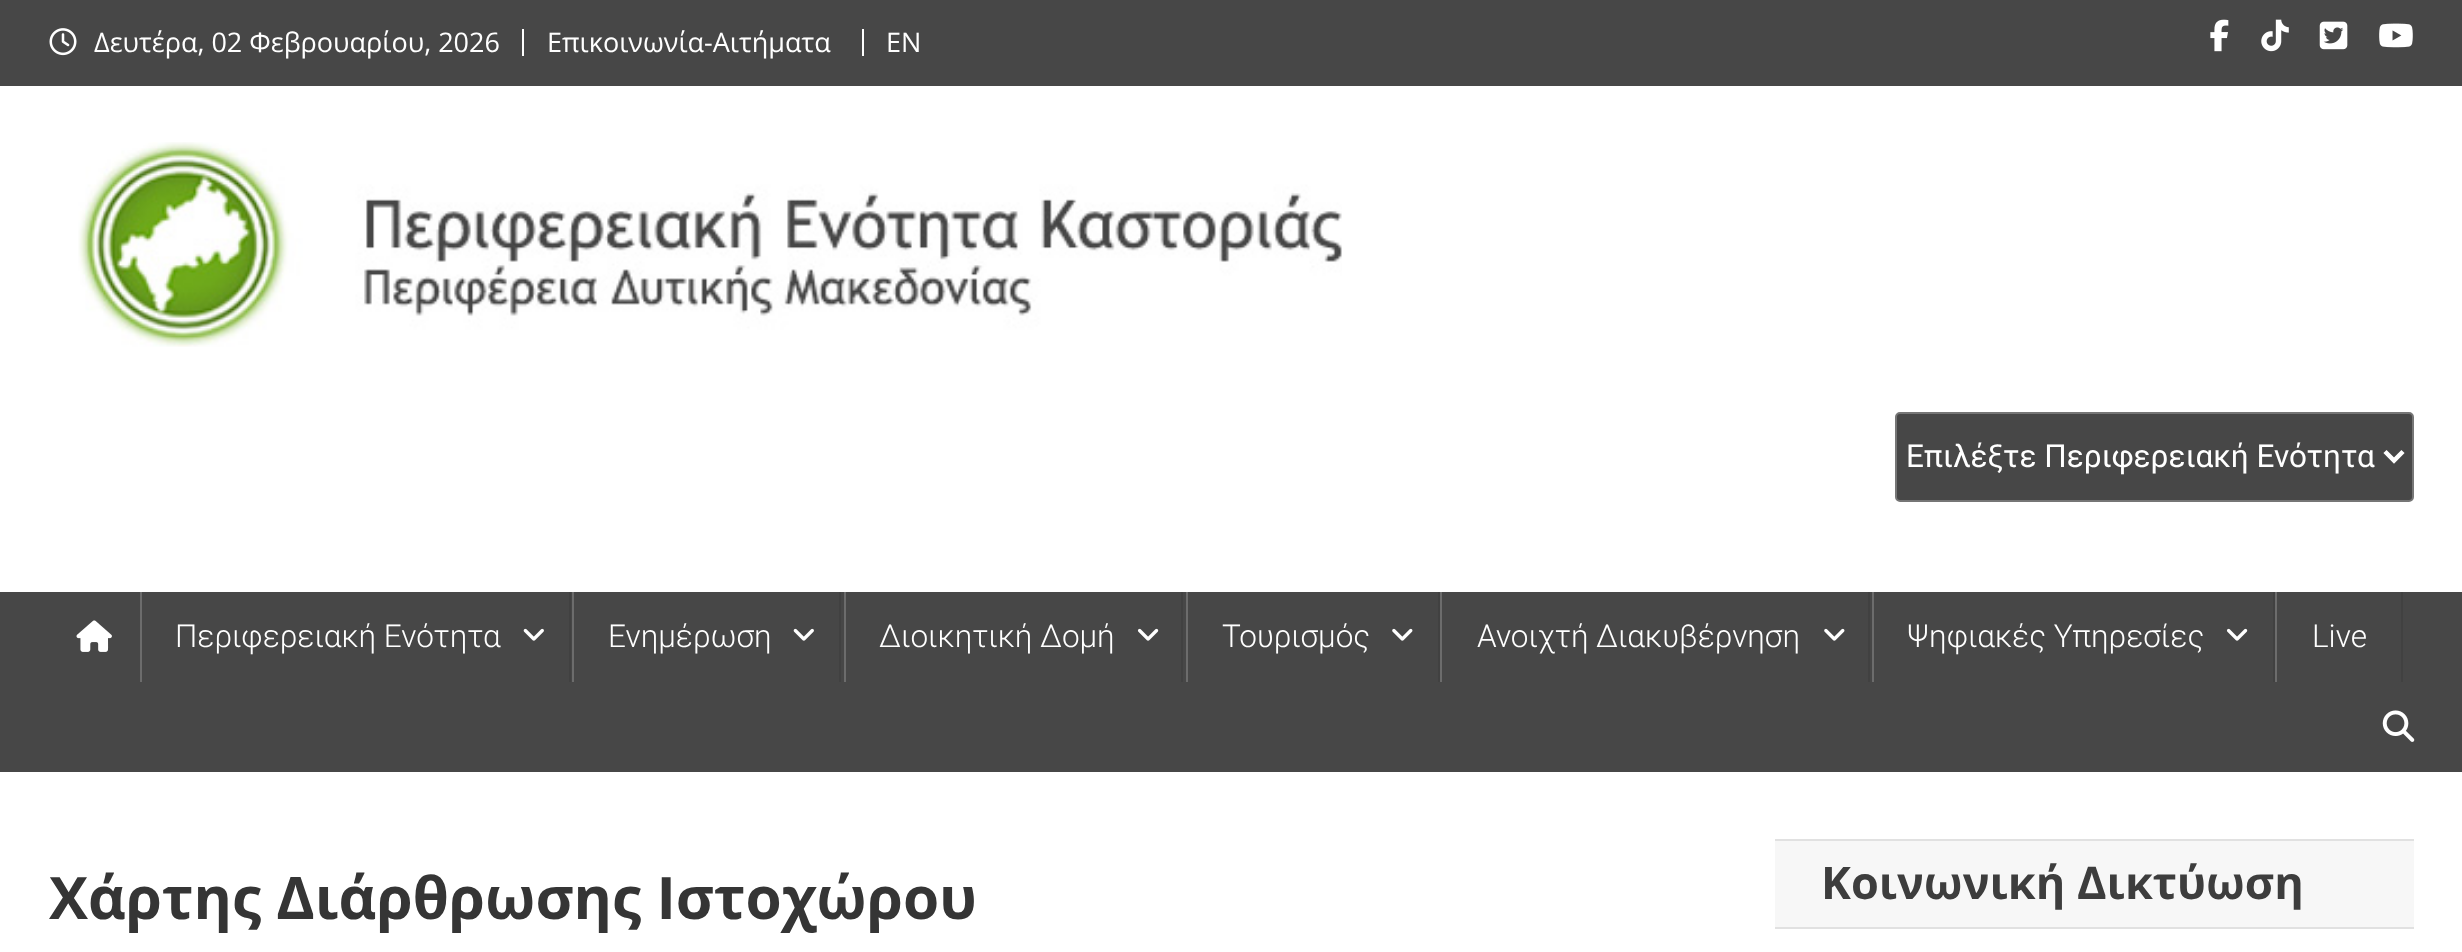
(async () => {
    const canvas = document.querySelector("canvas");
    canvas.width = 2462;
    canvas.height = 952;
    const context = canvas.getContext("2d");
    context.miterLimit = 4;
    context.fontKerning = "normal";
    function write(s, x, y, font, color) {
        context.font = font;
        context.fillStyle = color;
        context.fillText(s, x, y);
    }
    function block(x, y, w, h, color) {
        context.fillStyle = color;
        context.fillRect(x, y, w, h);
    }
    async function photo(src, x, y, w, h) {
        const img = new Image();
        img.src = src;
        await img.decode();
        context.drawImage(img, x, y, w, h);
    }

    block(0, 0, 2462, 952, "rgb(255, 255, 255)");
    block(0, 0, 2462, 86, "rgb(71, 71, 71)");
    await photo("media/1.png", 49, 28, 28, 28);
    write("Δευτέρα, 02 Φεβρουαρίου, 2026", 94, 52, "27px Open Sans", "rgb(255, 255, 255)");
    block(522, 29, 2, 27, "rgb(255, 255, 255)");
    write("Επικοινωνία-Αιτήματα", 547, 52, "27px Open Sans", "rgb(255, 255, 255)");
    block(862, 29, 2, 27, "rgb(255, 255, 255)");
    write("EN", 886, 52, "27px Open Sans", "rgb(255, 255, 255)");
    await photo("media/2.png", 2210, 19, 19, 33);
    await photo("media/3.png", 2261, 19, 28, 33);
    await photo("media/4.png", 2319, 21, 29, 29);
    await photo("media/5.png", 2379, 23, 34, 25);
    await photo("media/6.png", 78, 142, 1264, 205);
    context.fillStyle = "rgb(71, 71, 71)";
    context.beginPath();
    context.roundRect(1896, 413, 517, 88, 4);
    context.fill();
    context.strokeStyle = "rgb(118, 118, 118)";
    context.lineWidth = 2;
    context.stroke();
    context.beginPath();
    context.moveTo(2385, 451.5);
    context.lineTo(2394, 460.5);
    context.lineTo(2403, 451.5);
    context.strokeStyle = "rgb(255, 255, 255)";
    context.lineWidth = 4.5;
    context.stroke();
    write("Επιλέξτε Περιφερειακή Ενότητα", 1906, 467, "31.5px Roboto", "rgb(255, 255, 255)");
    block(0, 592, 2462, 180, "rgb(71, 71, 71)");
    await photo("media/7.png", 76, 620, 36, 32);
    block(569, 592, 2, 90, "rgb(65, 65, 65)");
    block(140, 592, 2, 90, "rgb(108, 108, 108)");
    write("Περιφερειακή Ενότητα", 175, 647, "300 31.5px Roboto", "rgb(255, 255, 255)");
    await photo("media/8.png", 523, 628, 21, 13);
    block(839, 592, 2, 90, "rgb(65, 65, 65)");
    block(572, 592, 2, 90, "rgb(108, 108, 108)");
    write("Ενημέρωση", 608, 647, "300 31.5px Roboto", "rgb(255, 255, 255)");
    await photo("media/8.png", 793, 628, 21, 13);
    block(1181, 592, 2, 90, "rgb(65, 65, 65)");
    block(844, 592, 2, 90, "rgb(108, 108, 108)");
    write("Διοικητική Δομή", 879, 647, "300 31.5px Roboto", "rgb(255, 255, 255)");
    await photo("media/9.png", 1137, 628, 22, 13);
    block(1438, 592, 2, 90, "rgb(65, 65, 65)");
    block(1186, 592, 2, 90, "rgb(108, 108, 108)");
    write("Τουρισμός", 1222, 647, "300 31.5px Roboto", "rgb(255, 255, 255)");
    await photo("media/10.png", 1392, 628, 21, 13);
    block(1868, 592, 2, 90, "rgb(65, 65, 65)");
    block(1440, 592, 2, 90, "rgb(108, 108, 108)");
    write("Ανοιχτή Διακυβέρνηση", 1477, 647, "300 31.5px Roboto", "rgb(255, 255, 255)");
    await photo("media/10.png", 1824, 628, 21, 13);
    block(2273, 592, 2, 90, "rgb(65, 65, 65)");
    block(1872, 592, 2, 90, "rgb(108, 108, 108)");
    write("Ψηφιακές Υπηρεσίες", 1907, 647, "300 31.5px Roboto", "rgb(255, 255, 255)");
    await photo("media/9.png", 2226, 628, 22, 13);
    block(2401, 592, 2, 90, "rgb(65, 65, 65)");
    block(2275, 592, 2, 90, "rgb(108, 108, 108)");
    write("Live", 2312, 647, "300 31.5px Roboto", "rgb(255, 255, 255)");
    await photo("media/11.png", 2382, 710, 33, 32);
    write("Χάρτης Διάρθρωσης Ιστοχώρου", 49, 919, "bold 58.5px Open Sans", "rgb(53, 53, 53)");
    block(1775, 841, 639, 86, "rgb(247, 247, 247)");
    block(1775, 839, 639, 2, "rgb(225, 225, 225)");
    block(1775, 927, 639, 2, "rgb(225, 225, 225)");
    write("Κοινωνική Δικτύωση", 1821, 899, "bold 45px Open Sans", "rgb(61, 61, 61)");
})();
